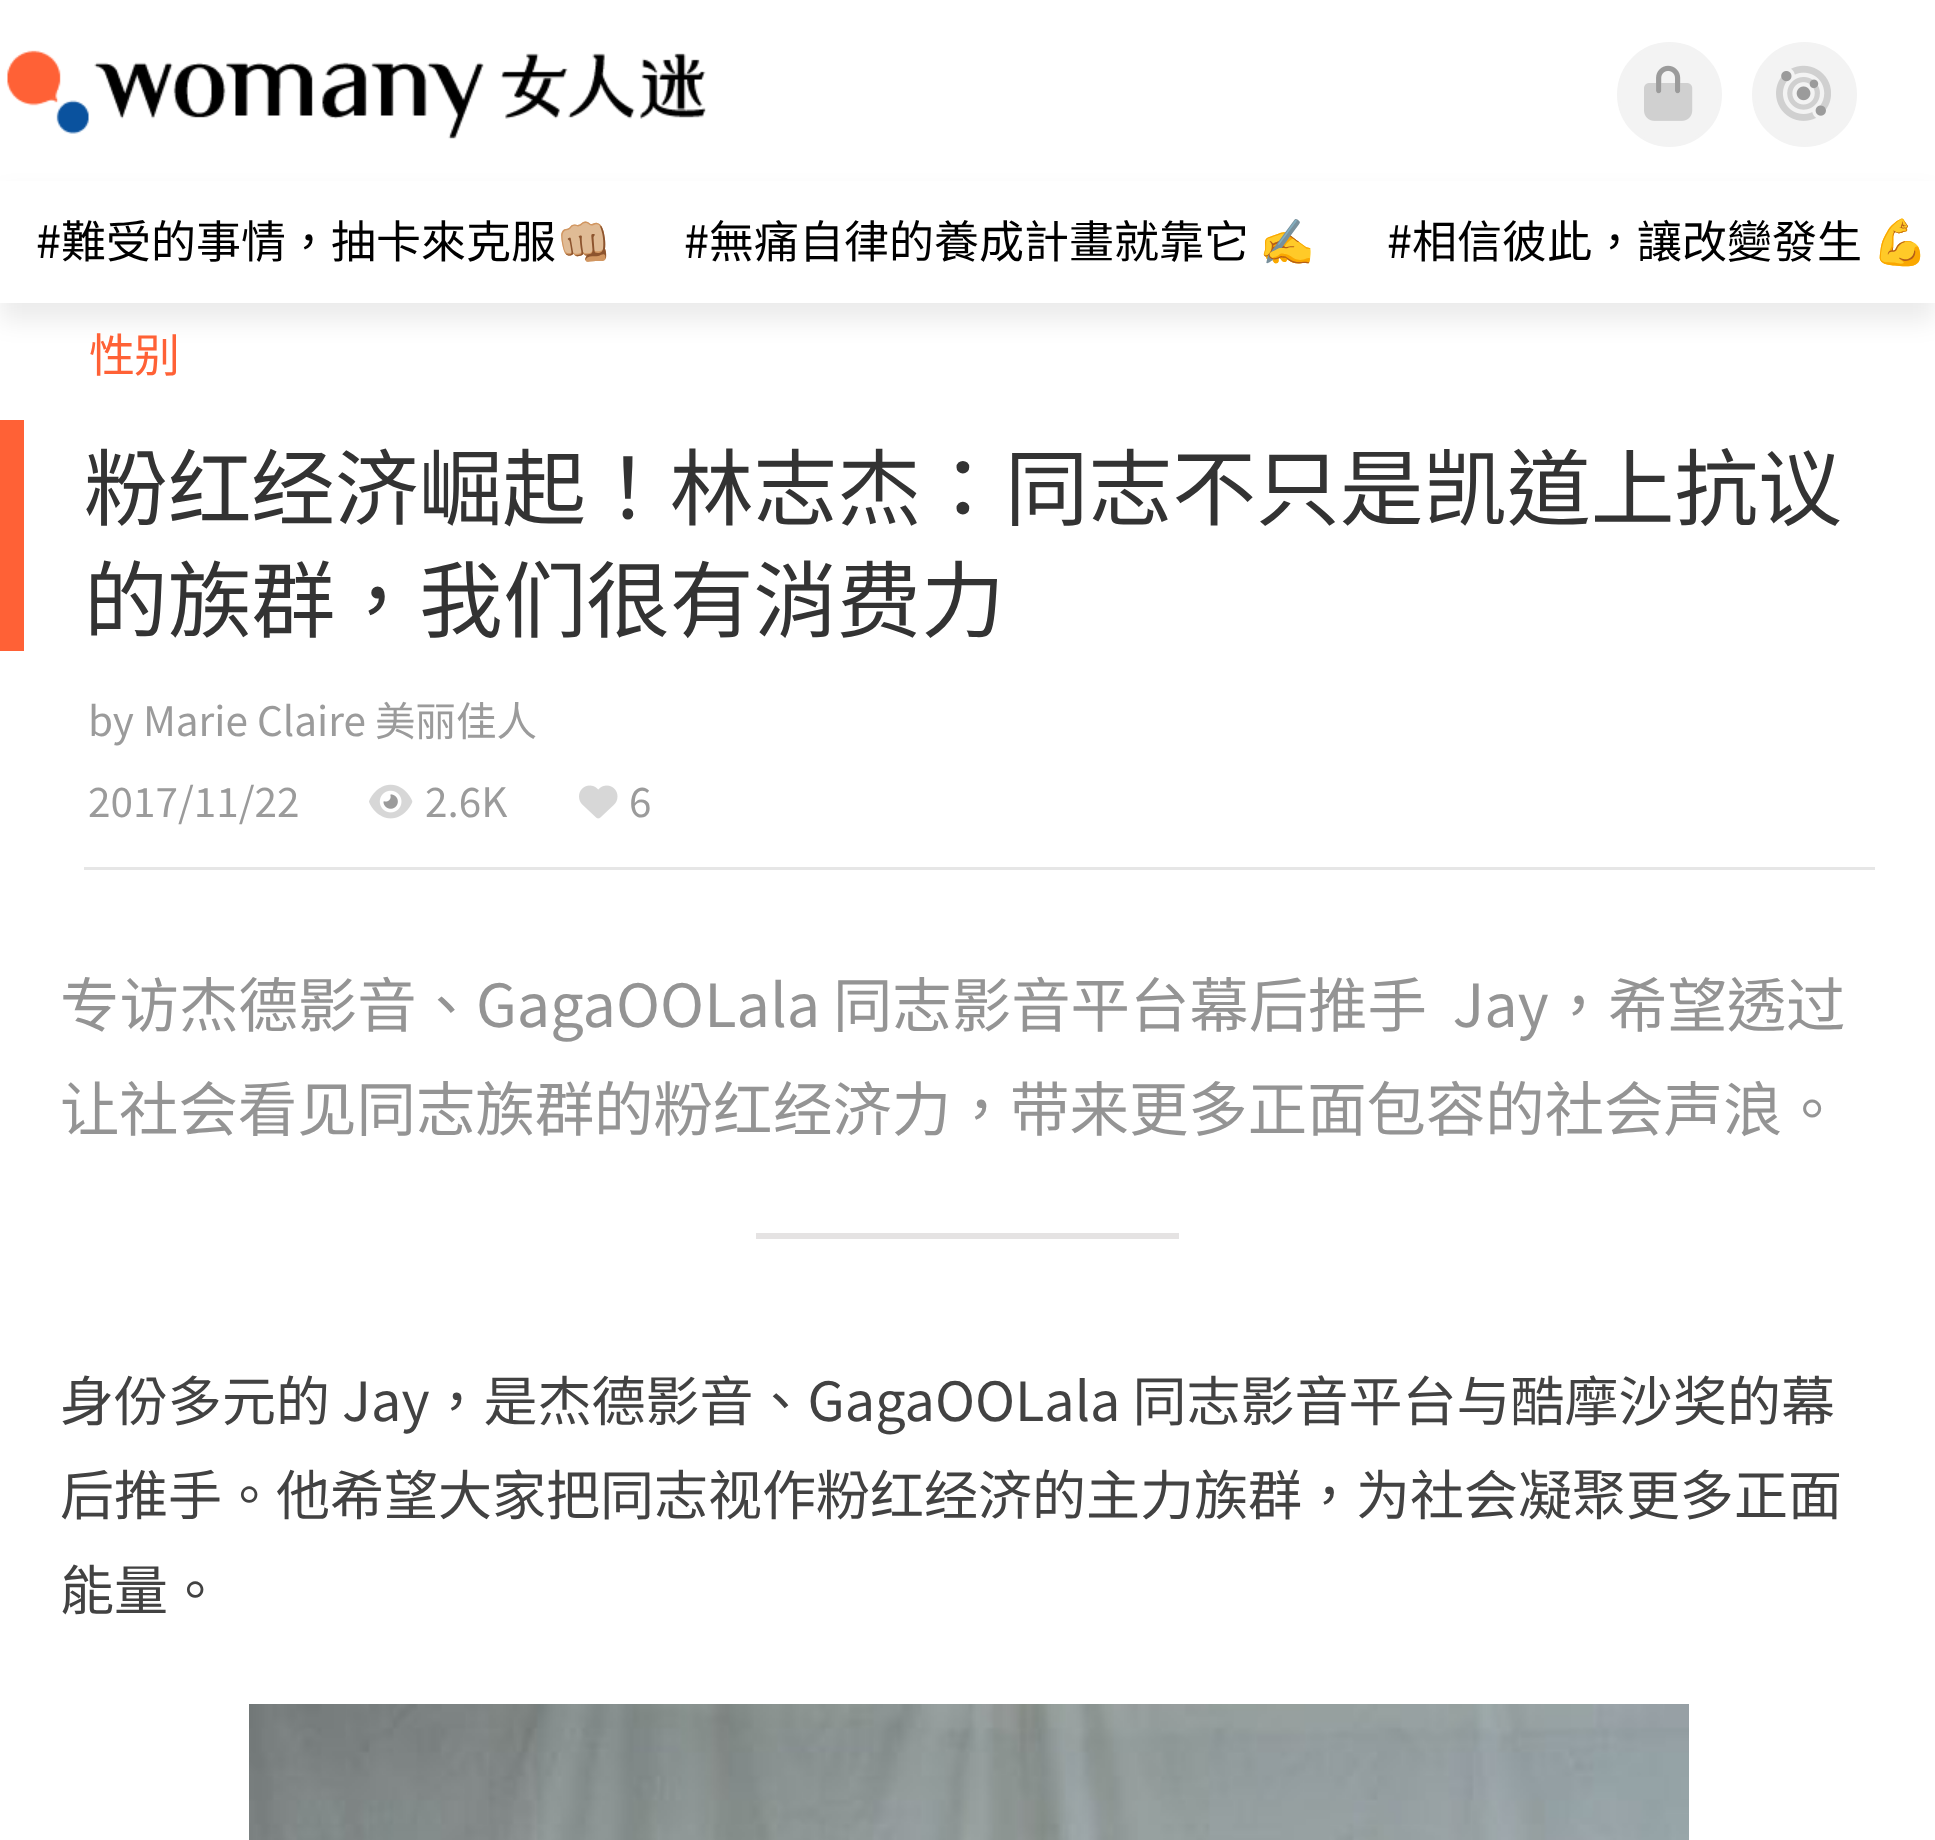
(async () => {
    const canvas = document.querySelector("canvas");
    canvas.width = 1935;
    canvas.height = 1840;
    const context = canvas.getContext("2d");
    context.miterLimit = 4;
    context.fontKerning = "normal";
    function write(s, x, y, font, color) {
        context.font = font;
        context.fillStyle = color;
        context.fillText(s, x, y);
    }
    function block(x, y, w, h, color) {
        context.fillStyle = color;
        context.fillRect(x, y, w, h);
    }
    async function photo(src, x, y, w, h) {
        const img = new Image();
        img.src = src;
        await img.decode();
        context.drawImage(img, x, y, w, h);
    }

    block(0, 0, 1935, 1840, "rgb(255, 255, 255)");
    await photo("media/1.png", 7, 50, 699, 89);
    context.fillStyle = "rgb(243, 243, 243)";
    context.beginPath();
    context.arc(1669.5, 94.5, 51, 0, Math.PI * 2);
    context.fill();
    context.strokeStyle = "rgb(243, 243, 243)";
    context.lineWidth = 3;
    context.stroke();
    await photo("media/2.png", 1656, 65, 25, 29);
    await photo("media/3.png", 1644, 83, 49, 38);
    context.beginPath();
    context.arc(1804.5, 94.5, 51, 0, Math.PI * 2);
    context.fill();
    context.stroke();
    await photo("media/5.png", 1781, 71, 45, 45);
    await photo("media/4.png", 1776, 65, 55, 56);
    context.fillStyle = "rgba(0, 0, 0, 0.08)";
    context.filter = "blur(12px)";
    context.beginPath();
    context.rect(0, 195, 1935, 126);
    context.fill();
    context.filter = "none";
    block(0, 181, 1935, 122, "rgb(255, 255, 255)");
    write("#難受的事情，抽卡來克服", 36, 258, "45px Noto Sans TC", "rgb(0, 0, 0)");
    write("👊🏼", 556, 258, "45px Noto Color Emoji", "rgb(0, 0, 0)");
    write("#無痛自律的養成計畫就靠它", 684, 258, "45px Noto Sans TC", "rgb(0, 0, 0)");
    write("✍️", 1259, 258, "45px Noto Color Emoji", "rgb(0, 0, 0)");
    write("#相信彼此，讓改變發生", 1387, 258, "45px Noto Sans TC", "rgb(0, 0, 0)");
    write("💪", 1872, 258, "45px Noto Color Emoji", "rgb(0, 0, 0)");
    block(84, 867, 1791, 3, "rgb(230, 230, 230)");
    write("性", 89, 372, "46px Noto Sans TC", "rgb(255, 97, 54)");
    write("别", 134, 372, "46px Noto Sans CJK TC", "rgb(255, 97, 54)");
    block(0, 420, 24, 231, "rgb(255, 97, 54)");
    write("粉", 84, 519, "83.75px Noto Sans TC", "rgb(51, 51, 51)");
    write("红", 168, 519, "83.75px Noto Sans CJK TC", "rgb(51, 51, 51)");
    write("经济崛起！林志杰：同志不只是", 251, 519, "83.75px Noto Sans TC", "rgb(51, 51, 51)");
    write("凯", 1423, 519, "83.75px Noto Sans CJK TC", "rgb(51, 51, 51)");
    write("道上抗", 1507, 519, "83.75px Noto Sans TC", "rgb(51, 51, 51)");
    write("议", 1758, 519, "83.75px Noto Sans CJK TC", "rgb(51, 51, 51)");
    write("的族群，我", 84, 631, "83.75px Noto Sans TC", "rgb(51, 51, 51)");
    write("们", 503, 631, "83.75px Noto Sans CJK TC", "rgb(51, 51, 51)");
    write("很有消", 586, 631, "83.75px Noto Sans TC", "rgb(51, 51, 51)");
    write("费", 837, 631, "83.75px Noto Sans CJK TC", "rgb(51, 51, 51)");
    write("力", 921, 631, "83.75px Noto Sans TC", "rgb(51, 51, 51)");
    write("by Marie Claire 美丽佳人", 88, 736, "40.5px Noto Sans TC", "rgb(155, 155, 155)");
    write("2017/11/22", 88, 817, "40.5px Noto Sans TC", "rgb(155, 155, 155)");
    await photo("media/7.png", 383, 794, 15, 15);
    await photo("media/6.png", 369, 784, 44, 35);
    write("2.6K", 425, 817, "40.5px Noto Sans TC", "rgb(155, 155, 155)");
    await photo("media/8.png", 579, 785, 39, 34);
    write("6", 629, 817, "40.5px Noto Sans TC", "rgb(155, 155, 155)");
    write("专访", 60, 1027, "59.4px Noto Sans CJK TC", "rgb(148, 148, 148)");
    context.wordSpacing = "-0.5px";
    write("杰德影音、GagaOOLala 同志影音平台幕后推手  Jay，希望透", 179, 1027, "59.4px Noto Sans TC", "rgb(148, 148, 148)");
    context.wordSpacing = "0px";
    write("过", 1786, 1027, "59.4px Noto Sans CJK TC", "rgb(148, 148, 148)");
    write("让", 60, 1131, "59.4px Noto Sans CJK TC", "rgb(148, 148, 148)");
    write("社会看见同志族群的粉", 119, 1131, "59.4px Noto Sans TC", "rgb(148, 148, 148)");
    write("红", 713, 1131, "59.4px Noto Sans CJK TC", "rgb(148, 148, 148)");
    write("经济力，", 773, 1131, "59.4px Noto Sans TC", "rgb(148, 148, 148)");
    write("带来", 1010, 1131, "59.4px Noto Sans CJK TC", "rgb(148, 148, 148)");
    write("更多正面包容的社会声浪。", 1129, 1131, "59.4px Noto Sans TC", "rgb(148, 148, 148)");
    block(756, 1233, 423, 6, "rgb(229, 227, 227)");
    write("身份多元的 Jay，是杰德影音、GagaOOLala 同志影音平台与酷摩沙", 60, 1421, "54px Noto Sans TC", "rgb(66, 66, 66)");
    write("奖", 1673, 1421, "54px Noto Sans CJK TC", "rgb(66, 66, 66)");
    write("的幕", 1727, 1421, "54px Noto Sans TC", "rgb(66, 66, 66)");
    write("后推手。他希望大家把同志视作粉", 60, 1515, "54px Noto Sans TC", "rgb(66, 66, 66)");
    write("红", 870, 1515, "54px Noto Sans CJK TC", "rgb(66, 66, 66)");
    write("经济的主力族群，", 924, 1515, "54px Noto Sans TC", "rgb(66, 66, 66)");
    write("为", 1356, 1515, "54px Noto Sans CJK TC", "rgb(66, 66, 66)");
    write("社会凝聚更多正面", 1410, 1515, "54px Noto Sans TC", "rgb(66, 66, 66)");
    write("能量。", 60, 1610, "54px Noto Sans TC", "rgb(66, 66, 66)");
    await photo("media/9.png", 249, 1704, 1440, 136);
})();
